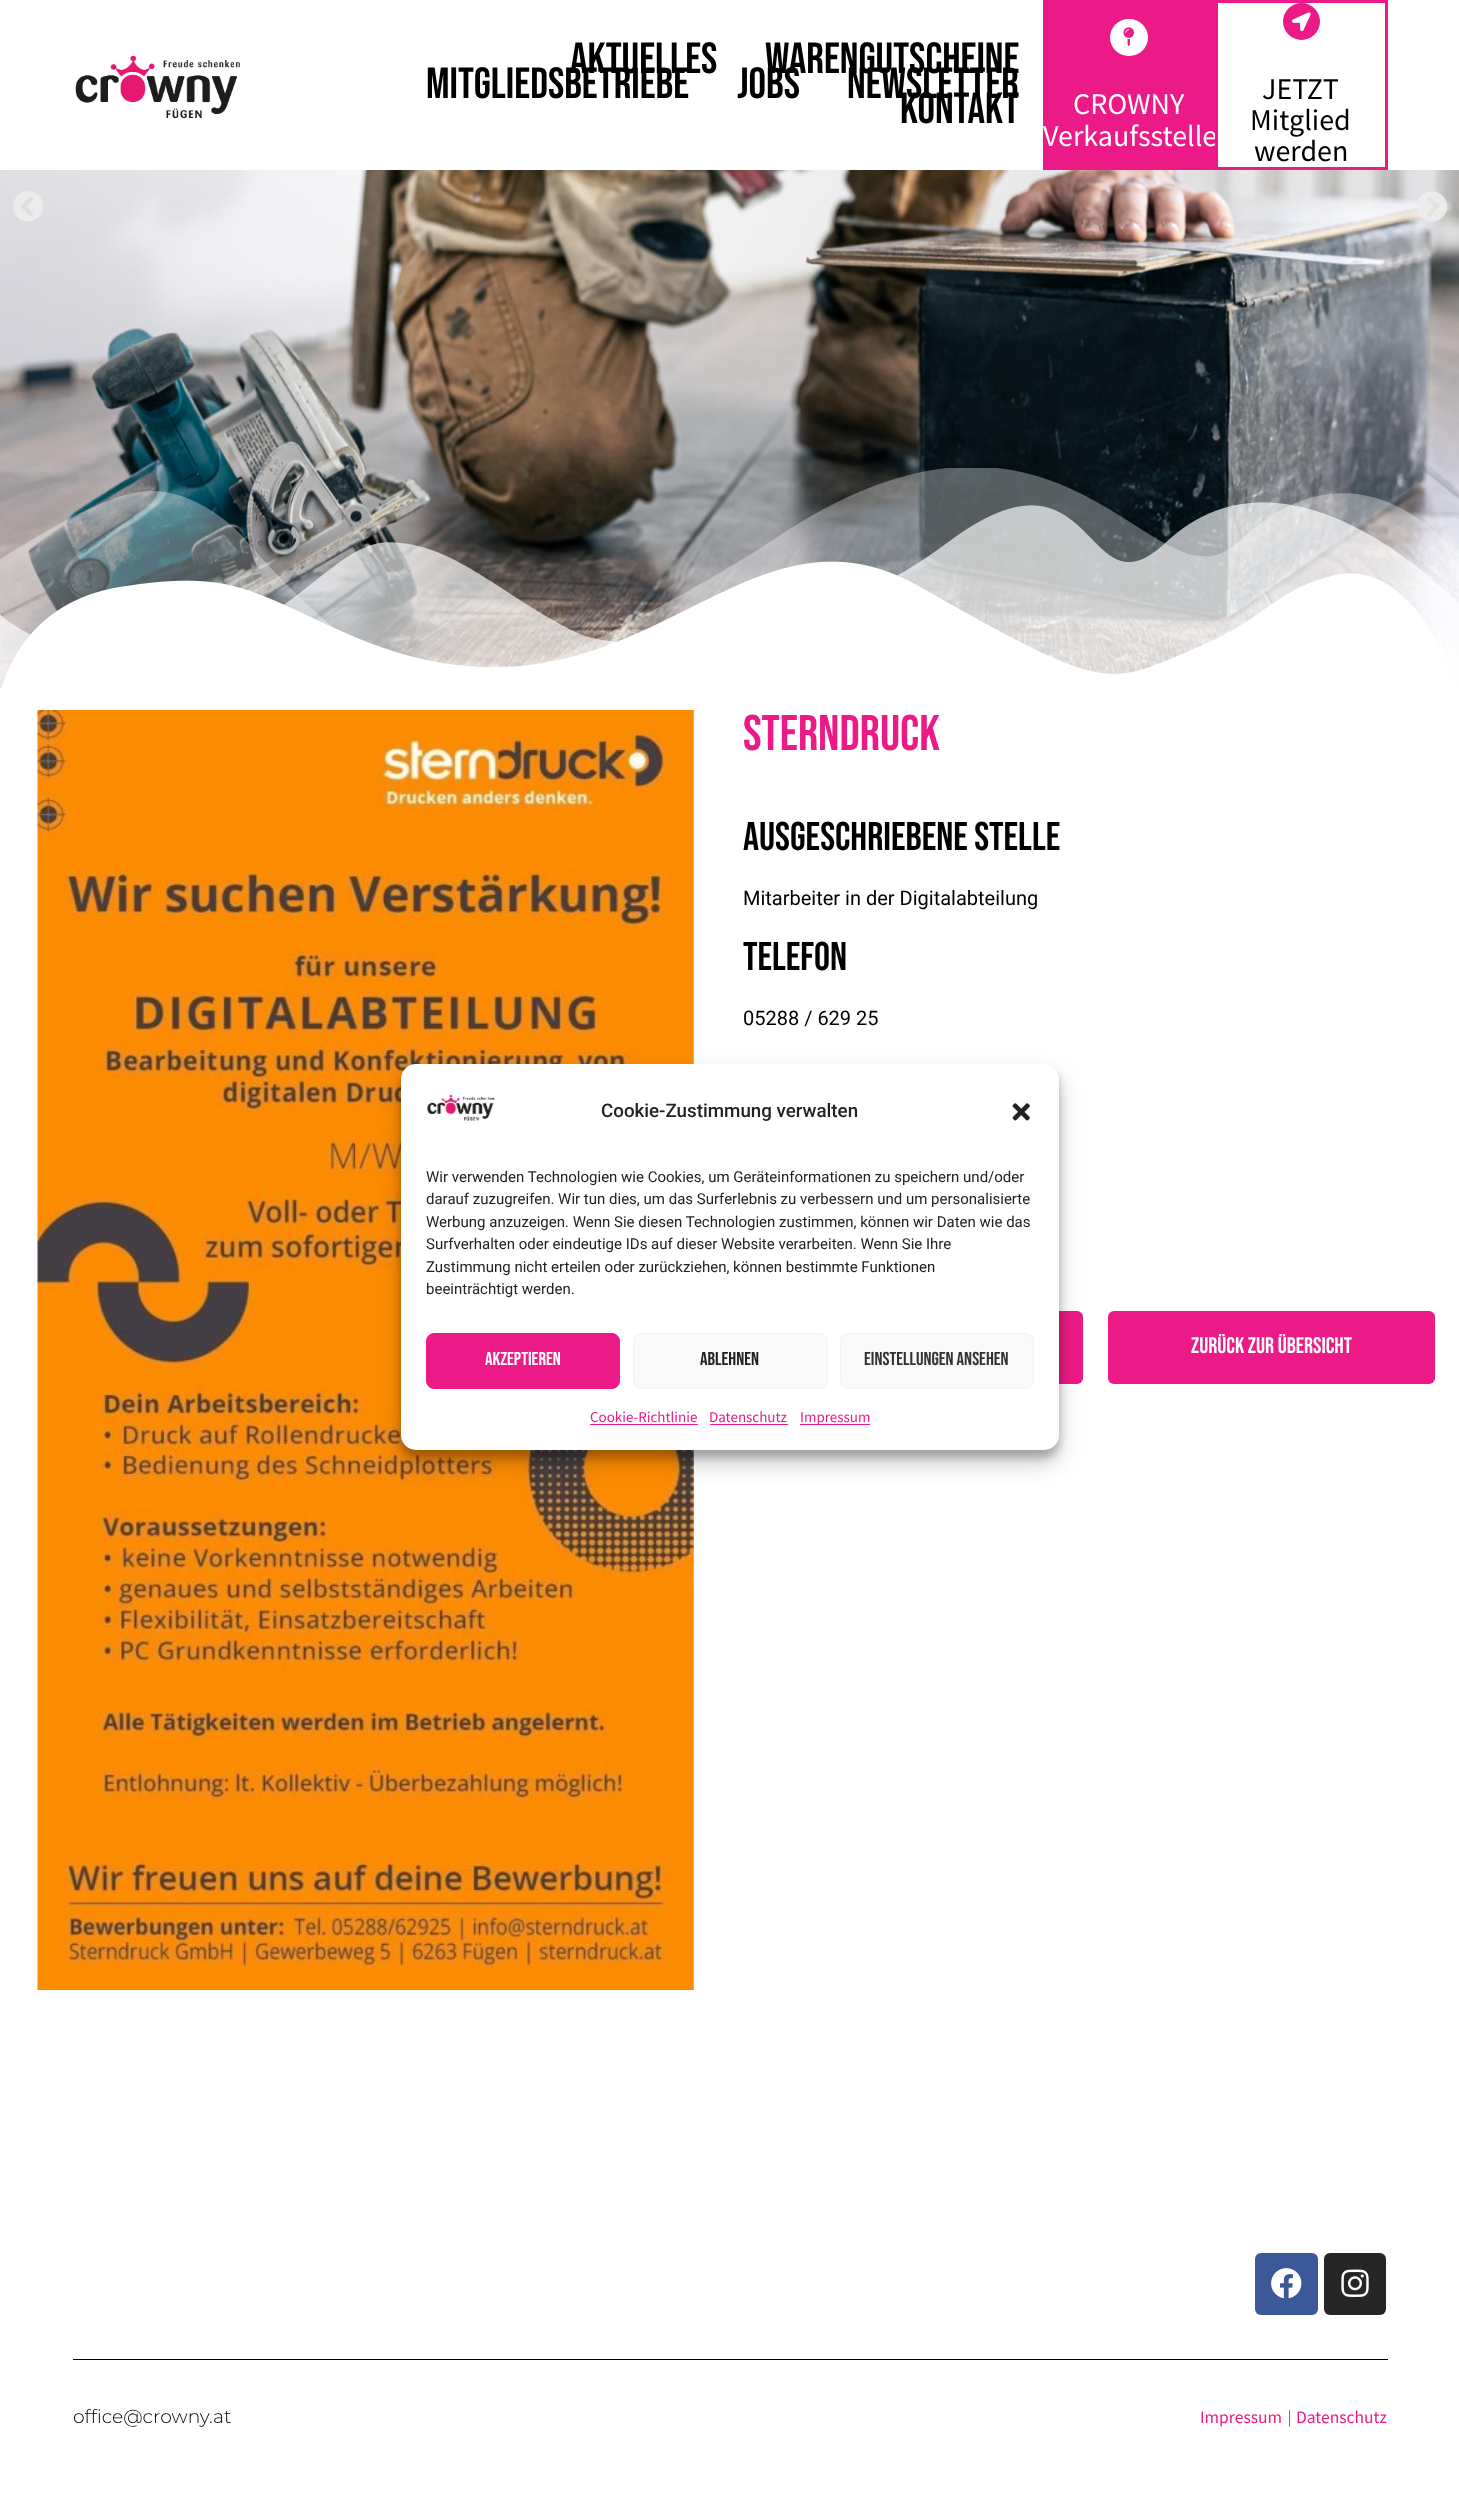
(async () => {
    const canvas = document.querySelector("canvas");
    canvas.width = 1459;
    canvas.height = 2512;
    const context = canvas.getContext("2d");
    context.miterLimit = 4;
    context.fontKerning = "normal";
    function write(s, x, y, font, color) {
        context.font = font;
        context.fillStyle = color;
        context.fillText(s, x, y);
    }
    function block(x, y, w, h, color) {
        context.fillStyle = color;
        context.fillRect(x, y, w, h);
    }
    function card(x, y, w, h, r, color) {
        context.fillStyle = color;
        context.beginPath();
        context.roundRect(x, y, w, h, r);
        context.fill();
    }
    async function photo(src, x, y, w, h) {
        const img = new Image();
        img.src = src;
        await img.decode();
        context.drawImage(img, x, y, w, h);
    }

    block(0, 0, 1459, 2512, "rgb(255, 255, 255)");
    await photo("media/1.png", 75, 55, 165, 64);
    write("Aktuelles", 570, 73, "43.75px Bebas Neue", "rgb(0, 0, 0)");
    write("Warengutscheine", 765, 73, "43.75px Bebas Neue", "rgb(0, 0, 0)");
    write("Mitgliedsbetriebe", 426, 98, "43.75px Bebas Neue", "rgb(0, 0, 0)");
    write("Jobs", 737, 98, "43.75px Bebas Neue", "rgb(0, 0, 0)");
    write("Newsletter", 847, 98, "43.75px Bebas Neue", "rgb(0, 0, 0)");
    write("Kontakt", 900, 123, "43.75px Bebas Neue", "rgb(0, 0, 0)");
    block(1043, 0, 172, 170, "rgb(236, 26, 134)");
    card(1110, 19, 38, 37, 18.5, "rgb(255, 255, 255)");
    await photo("media/2.png", 1123, 27, 11, 19);
    write("CROWNY", 1073, 114, "30px Source Sans Pro", "rgb(255, 255, 255)");
    write("Verkaufsstelle", 1043, 146, "30px Source Sans Pro", "rgb(255, 255, 255)");
    context.strokeStyle = "rgb(236, 26, 134)";
    context.lineWidth = 3;
    context.strokeRect(1216.5, 1.5, 170, 167);
    context.fillStyle = "rgb(236, 26, 134)";
    context.beginPath();
    context.arc(1301.5, 21.5, 18.5, 0, Math.PI * 2);
    context.fill();
    await photo("media/3.png", 1291, 12, 20, 20);
    write("JETZT", 1262, 99, "30px Source Sans Pro", "rgb(0, 0, 0)");
    write("Mitglied", 1250, 130, "30px Source Sans Pro", "rgb(0, 0, 0)");
    write("werden", 1254, 161, "30px Source Sans Pro", "rgb(0, 0, 0)");
    await photo("media/10.png", 37, 710, 657, 1280);
    card(755, 1311, 328, 73, 6, "rgb(236, 26, 134)");
    context.fillStyle = "rgba(0, 0, 0, 0.23)";
    context.filter = "blur(4px)";
    context.beginPath();
    context.roundRect(401, 1071, 658, 387, 15);
    context.fill();
    context.filter = "none";
    context.fillStyle = "rgba(0, 0, 0, 0.19)";
    context.filter = "blur(12.5px)";
    context.beginPath();
    context.roundRect(401, 1076, 658, 387, 15);
    context.fill();
    context.filter = "none";
    card(401, 1064, 658, 386, 15, "rgb(255, 255, 255)");
    await photo("media/4.png", 427, 1094, 68, 27);
    write("Cookie-Zustimmung verwalten", 601, 1117, "500 18.75px Roboto", "rgb(34, 34, 34)");
    await photo("media/5.png", 1012, 1103, 18, 18);
    write("Wir verwenden Technologien wie Cookies, um Geräteinformationen zu speichern und/oder", 426, 1182, "15px Roboto", "rgb(34, 34, 34)");
    write("darauf zuzugreifen. Wir tun dies, um das Surferlebnis zu verbessern und um personalisierte", 426, 1204, "15px Roboto", "rgb(34, 34, 34)");
    write("Werbung anzuzeigen. Wenn Sie diesen Technologien zustimmen, können wir Daten wie das", 426, 1227, "15px Roboto", "rgb(34, 34, 34)");
    write("Surfverhalten oder eindeutige IDs auf dieser Website verarbeiten. Wenn Sie Ihre", 426, 1249, "15px Roboto", "rgb(34, 34, 34)");
    write("Zustimmung nicht erteilen oder zurückziehen, können bestimmte Funktionen", 426, 1272, "15px Roboto", "rgb(34, 34, 34)");
    write("beeinträchtigt werden.", 426, 1294, "15px Roboto", "rgb(34, 34, 34)");
    context.fillStyle = "rgb(236, 26, 134)";
    context.beginPath();
    context.roundRect(426.5, 1333.5, 193, 55, 7.5);
    context.fill();
    context.lineWidth = 1;
    context.stroke();
    write("Akzeptieren", 485, 1365, "18.75px Bebas Neue", "rgb(255, 255, 255)");
    context.fillStyle = "rgb(249, 249, 249)";
    context.beginPath();
    context.roundRect(633.5, 1333.5, 194, 55, 7.5);
    context.fill();
    context.strokeStyle = "rgb(242, 242, 242)";
    context.stroke();
    write("Ablehnen", 700, 1365, "18.75px Bebas Neue", "rgb(34, 34, 34)");
    context.fillStyle = "rgb(249, 249, 249)";
    context.beginPath();
    context.roundRect(840.5, 1333.5, 193, 55, 7.5);
    context.fill();
    context.stroke();
    write("Einstellungen ansehen", 864, 1365, "18.75px Bebas Neue", "rgb(51, 51, 51)");
    write("Cookie-Richtlinie", 590, 1422, "15px Source Sans Pro", "rgb(236, 26, 134)");
    block(590, 1424, 108, 1, "rgb(236, 26, 134)");
    write("Datenschutz", 709, 1422, "15px Source Sans Pro", "rgb(236, 26, 134)");
    block(710, 1424, 78, 1, "rgb(236, 26, 134)");
    block(800, 1424, 70, 1, "rgb(236, 26, 134)");
    write("Impressum", 800, 1422, "15px Source Sans Pro", "rgb(236, 26, 134)");
    await photo("media/6.png", 0, 170, 1459, 519);
    await photo("media/7.png", 13, 191, 30, 31);
    await photo("media/8.png", 1417, 191, 30, 31);
    await photo("media/9.png", 0, 468, 1459, 221);
    write("Sterndruck", 743, 750, "50px Bebas Neue", "rgb(236, 26, 134)");
    write("Ausgeschriebene Stelle", 743, 850, "40px Bebas Neue", "rgb(0, 0, 0)");
    write("Mitarbeiter in der Digitalabteilung", 743, 905, "20px Roboto", "rgb(0, 0, 0)");
    write("Telefon", 743, 970, "40px Bebas Neue", "rgb(0, 0, 0)");
    write("05288 / 629 25", 743, 1025, "20px Roboto", "rgb(0, 0, 0)");
    card(1108, 1311, 327, 73, 6, "rgb(236, 26, 134)");
    write("Zurück zur Übersicht", 1191, 1353, "22.5px Bebas Neue", "rgb(255, 255, 255)");
    card(1255, 2253, 63, 62, 6, "rgb(59, 89, 152)");
    await photo("media/11.png", 1271, 2268, 31, 31);
    card(1324, 2253, 62, 62, 6, "rgb(38, 38, 38)");
    await photo("media/12.png", 1341, 2269, 28, 28);
    block(73, 2359, 1315, 1, "rgb(0, 0, 0)");
    write("office@crowny.at", 73, 2423, "300 18.75px Montserrat", "rgb(0, 0, 0)");
    write("Impressum", 1200, 2423, "17.5px Source Sans Pro", "rgb(236, 26, 134)");
    write("|", 1287, 2423, "200 17.5px Montserrat", "rgb(0, 0, 0)");
    write("Datenschutz", 1296, 2423, "17.5px Source Sans Pro", "rgb(236, 26, 134)");
})();
